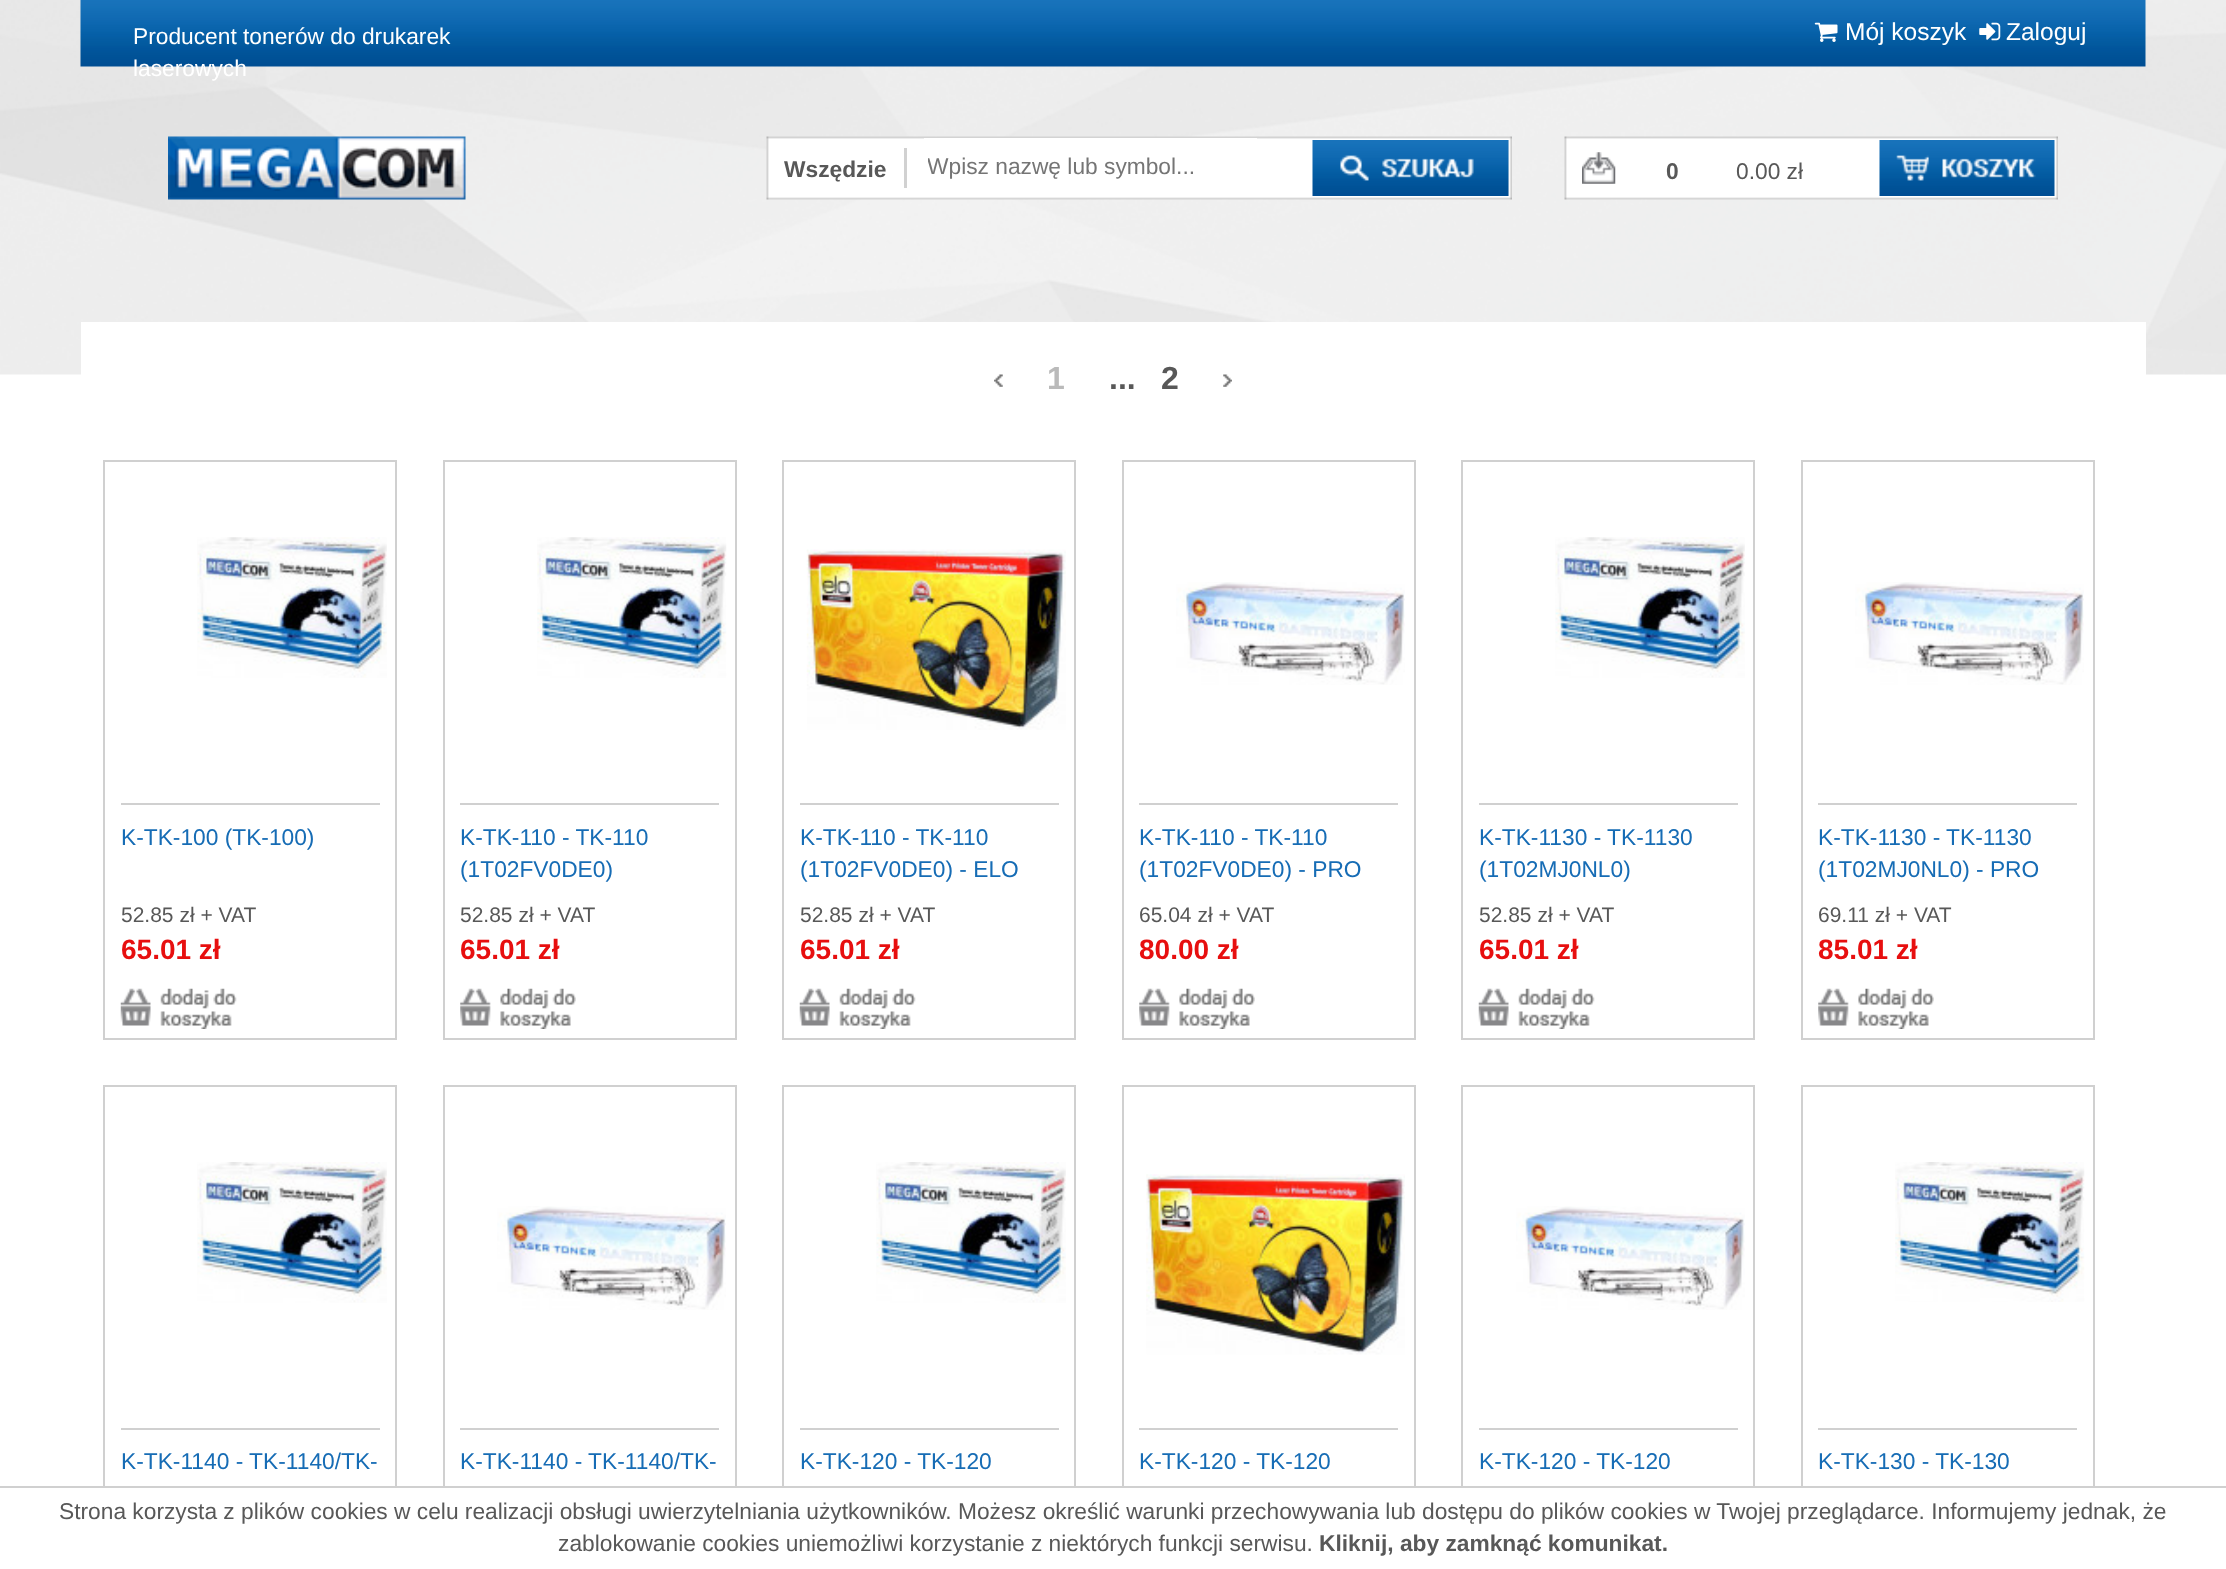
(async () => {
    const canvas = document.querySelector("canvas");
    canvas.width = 2226;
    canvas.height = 1569;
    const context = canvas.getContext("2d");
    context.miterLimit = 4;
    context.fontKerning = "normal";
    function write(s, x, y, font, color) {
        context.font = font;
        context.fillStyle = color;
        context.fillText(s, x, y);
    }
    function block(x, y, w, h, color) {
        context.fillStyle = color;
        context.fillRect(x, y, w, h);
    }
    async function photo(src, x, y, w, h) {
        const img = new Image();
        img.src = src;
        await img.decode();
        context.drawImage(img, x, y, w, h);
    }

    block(0, 0, 2226, 1569, "rgb(255, 255, 255)");
    await photo("media/1.png", 0, 0, 2226, 375);
    await photo("media/2.png", 80, 0, 2066, 67);
    write("Producent tonerów do drukarek", 133, 44, "22.75px Liberation Sans", "rgb(255, 255, 255)");
    write("laserowych", 133, 76, "22.75px Liberation Sans", "rgb(255, 255, 255)");
    await photo("media/3.png", 1814, 22, 24, 20);
    write("Mój koszyk", 1845, 40, "24.5px Liberation Sans", "rgb(255, 255, 255)");
    await photo("media/4.png", 1979, 22, 22, 19);
    write("Zaloguj", 2006, 40, "24.5px Liberation Sans", "rgb(255, 255, 255)");
    await photo("media/5.png", 168, 136, 298, 64);
    await photo("media/6.png", 766, 136, 746, 64);
    write("Wszędzie", 784, 177, "bold 22.75px Liberation Sans", "rgb(88, 88, 88)");
    block(904, 148, 3, 40, "rgb(209, 209, 209)");
    block(924, 138, 333, 1, "rgb(255, 255, 255)");
    context.save();
    context.beginPath();
    context.rect(928, 154, 325, 26);
    context.clip();
    write("Wpisz nazwę lub symbol...", 927, 174, "22.75px Liberation Sans", "rgb(117, 117, 117)");
    context.restore();
    block(1508, 140, 1, 56, "rgb(239, 239, 239)");
    await photo("media/7.png", 1312, 140, 197, 56);
    await photo("media/8.png", 1564, 136, 494, 64);
    await photo("media/9.png", 1582, 152, 34, 32);
    write("0", 1666, 179, "bold 22.75px Liberation Sans", "rgb(88, 88, 88)");
    write("0.00 zł", 1736, 179, "22.75px Liberation Sans", "rgb(88, 88, 88)");
    await photo("media/10.png", 1879, 140, 176, 56);
    block(81, 322, 2065, 53, "rgb(255, 255, 255)");
    await photo("media/11.png", 994, 374, 9, 13);
    write("1", 1047, 389, "bold 32px Liberation Sans", "rgb(186, 186, 186)");
    write("...", 1109, 389, "bold 32px Liberation Sans", "rgb(88, 88, 88)");
    write("2", 1161, 389, "bold 32px Liberation Sans", "rgb(88, 88, 88)");
    await photo("media/12.png", 1223, 374, 9, 13);
    context.strokeStyle = "rgb(208, 208, 208)";
    context.lineWidth = 2;
    context.strokeRect(104, 461, 292, 578);
    block(121, 803, 259, 2, "rgb(208, 208, 208)");
    await photo("media/13.png", 197, 537, 190, 141);
    write("K-TK-100 (TK-100)", 121, 845, "22.75px Liberation Sans", "rgb(22, 108, 181)");
    write("52.85 zł + VAT", 121, 922, "21px Liberation Sans", "rgb(88, 88, 88)");
    write("65.01 zł", 121, 959, "bold 28px Liberation Sans", "rgb(231, 15, 15)");
    await photo("media/14.png", 120, 988, 117, 41);
    context.strokeRect(444, 461, 292, 578);
    block(460, 803, 259, 2, "rgb(208, 208, 208)");
    await photo("media/15.png", 537, 537, 190, 141);
    write("K-TK-110 - TK-110", 460, 845, "22.75px Liberation Sans", "rgb(22, 108, 181)");
    write("(1T02FV0DE0)", 460, 877, "22.75px Liberation Sans", "rgb(22, 108, 181)");
    write("52.85 zł + VAT", 460, 922, "21px Liberation Sans", "rgb(88, 88, 88)");
    write("65.01 zł", 460, 959, "bold 28px Liberation Sans", "rgb(231, 15, 15)");
    await photo("media/16.png", 460, 988, 116, 41);
    context.strokeRect(783, 461, 292, 578);
    block(800, 803, 259, 2, "rgb(208, 208, 208)");
    await photo("media/17.png", 806, 549, 260, 181);
    write("K-TK-110 - TK-110", 800, 845, "22.75px Liberation Sans", "rgb(22, 108, 181)");
    write("(1T02FV0DE0) - ELO", 800, 877, "22.75px Liberation Sans", "rgb(22, 108, 181)");
    write("52.85 zł + VAT", 800, 922, "21px Liberation Sans", "rgb(88, 88, 88)");
    write("65.01 zł", 800, 959, "bold 28px Liberation Sans", "rgb(231, 15, 15)");
    await photo("media/14.png", 799, 988, 117, 41);
    context.strokeRect(1123, 461, 292, 578);
    block(1139, 803, 259, 2, "rgb(208, 208, 208)");
    await photo("media/18.png", 1176, 582, 229, 103);
    write("K-TK-110 - TK-110", 1139, 845, "22.75px Liberation Sans", "rgb(22, 108, 181)");
    write("(1T02FV0DE0) - PRO", 1139, 877, "22.75px Liberation Sans", "rgb(22, 108, 181)");
    write("65.04 zł + VAT", 1139, 922, "21px Liberation Sans", "rgb(88, 88, 88)");
    write("80.00 zł", 1139, 959, "bold 28px Liberation Sans", "rgb(231, 15, 15)");
    await photo("media/16.png", 1139, 988, 116, 41);
    context.strokeRect(1462, 461, 292, 578);
    block(1479, 803, 259, 2, "rgb(208, 208, 208)");
    await photo("media/13.png", 1555, 537, 190, 141);
    write("K-TK-1130 - TK-1130", 1479, 845, "22.75px Liberation Sans", "rgb(22, 108, 181)");
    write("(1T02MJ0NL0)", 1479, 877, "22.75px Liberation Sans", "rgb(22, 108, 181)");
    write("52.85 zł + VAT", 1479, 922, "21px Liberation Sans", "rgb(88, 88, 88)");
    write("65.01 zł", 1479, 959, "bold 28px Liberation Sans", "rgb(231, 15, 15)");
    await photo("media/14.png", 1478, 988, 117, 41);
    context.strokeRect(1802, 461, 292, 578);
    block(1818, 803, 259, 2, "rgb(208, 208, 208)");
    await photo("media/18.png", 1855, 582, 229, 103);
    write("K-TK-1130 - TK-1130", 1818, 845, "22.75px Liberation Sans", "rgb(22, 108, 181)");
    write("(1T02MJ0NL0) - PRO", 1818, 877, "22.75px Liberation Sans", "rgb(22, 108, 181)");
    write("69.11 zł + VAT", 1818, 922, "21px Liberation Sans", "rgb(88, 88, 88)");
    write("85.01 zł", 1818, 959, "bold 28px Liberation Sans", "rgb(231, 15, 15)");
    await photo("media/19.png", 1818, 988, 116, 41);
    context.strokeRect(104, 1086, 292, 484);
    block(121, 1428, 259, 2, "rgb(208, 208, 208)");
    await photo("media/20.png", 197, 1162, 190, 141);
    write("K-TK-1140 - TK-1140/TK-", 121, 1469, "22.75px Liberation Sans", "rgb(22, 108, 181)");
    context.strokeRect(444, 1086, 292, 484);
    block(460, 1428, 259, 2, "rgb(208, 208, 208)");
    await photo("media/21.png", 497, 1206, 229, 104);
    write("K-TK-1140 - TK-1140/TK-", 460, 1469, "22.75px Liberation Sans", "rgb(22, 108, 181)");
    context.strokeRect(783, 1086, 292, 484);
    block(800, 1428, 259, 2, "rgb(208, 208, 208)");
    await photo("media/20.png", 876, 1162, 190, 141);
    write("K-TK-120 - TK-120", 800, 1469, "22.75px Liberation Sans", "rgb(22, 108, 181)");
    context.strokeRect(1123, 1086, 292, 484);
    block(1139, 1428, 259, 2, "rgb(208, 208, 208)");
    await photo("media/22.png", 1146, 1174, 259, 181);
    write("K-TK-120 - TK-120", 1139, 1469, "22.75px Liberation Sans", "rgb(22, 108, 181)");
    context.strokeRect(1462, 1086, 292, 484);
    block(1479, 1428, 259, 2, "rgb(208, 208, 208)");
    await photo("media/23.png", 1516, 1206, 229, 104);
    write("K-TK-120 - TK-120", 1479, 1469, "22.75px Liberation Sans", "rgb(22, 108, 181)");
    context.strokeRect(1802, 1086, 292, 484);
    block(1818, 1428, 259, 2, "rgb(208, 208, 208)");
    await photo("media/24.png", 1895, 1162, 190, 140);
    write("K-TK-130 - TK-130", 1818, 1469, "22.75px Liberation Sans", "rgb(22, 108, 181)");
    block(103, 1488, 1992, 81, "rgb(255, 255, 255)");
    block(0, 1486, 2226, 2, "rgb(208, 208, 208)");
    write("Strona korzysta z plików cookies w celu realizacji obsługi uwierzytelniania użytkowników. Możesz określić warunki przechowywania lub dostępu do plików cookies w Twojej przeglądarce. Informujemy jednak, że", 59, 1519, "22.75px Liberation Sans", "rgb(88, 88, 88)");
    write("zablokowanie cookies uniemożliwi korzystanie z niektórych funkcji serwisu.", 558, 1551, "22.75px Liberation Sans", "rgb(88, 88, 88)");
    write("Kliknij, aby zamknąć komunikat.", 1319, 1551, "bold 22.75px Liberation Sans", "rgb(88, 88, 88)");
})();
